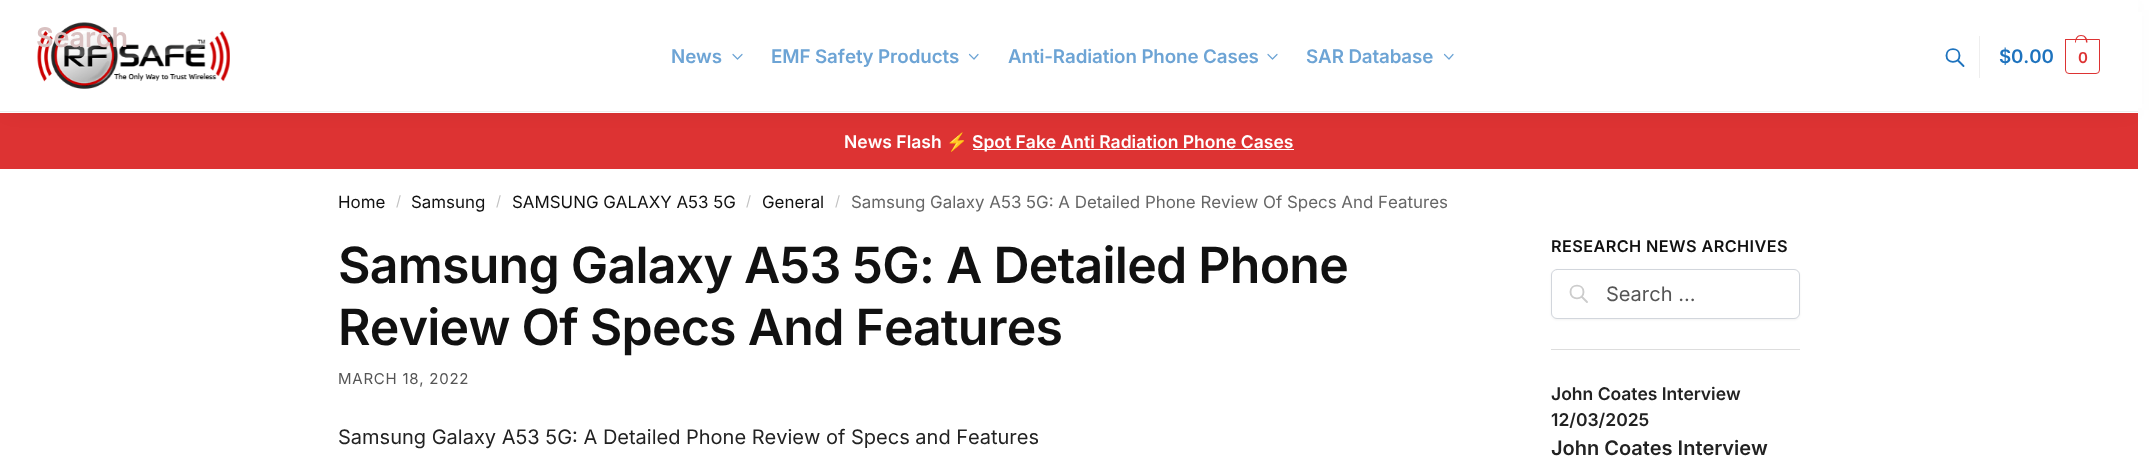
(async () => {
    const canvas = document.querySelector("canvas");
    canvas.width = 2156;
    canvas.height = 463;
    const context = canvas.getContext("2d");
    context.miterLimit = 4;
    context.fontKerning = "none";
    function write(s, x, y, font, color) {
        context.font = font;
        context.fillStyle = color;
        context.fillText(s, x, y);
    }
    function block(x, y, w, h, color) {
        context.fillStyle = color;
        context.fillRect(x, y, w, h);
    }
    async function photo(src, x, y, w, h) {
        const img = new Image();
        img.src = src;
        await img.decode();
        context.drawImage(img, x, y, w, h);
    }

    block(0, 0, 2156, 463, "rgb(255, 255, 255)");
    block(0, 113, 2138, 56, "rgb(221, 51, 51)");
    context.fillStyle = "rgba(0, 0, 0, 0.08)";
    context.filter = "blur(9.5px)";
    context.beginPath();
    context.rect(6, 10, 2125, 100);
    context.fill();
    context.filter = "none";
    block(0, 0, 2138, 113, "rgb(255, 255, 255)");
    block(0, 111, 2138, 1, "rgb(238, 238, 238)");
    await photo("media/1.png", 37, 22, 193, 67);
    write("Search", 36, 47, "600 27px Inter", "rgb(217, 193, 193)");
    context.letterSpacing = "-0.1px";
    write("News", 671, 63, "600 18.75px Inter", "rgb(109, 164, 213)");
    context.beginPath();
    context.moveTo(742, 54.5);
    context.lineTo(737.5, 59);
    context.lineTo(733, 54.5);
    context.strokeStyle = "rgb(109, 164, 213)";
    context.lineWidth = 1.2;
    context.lineCap = "round";
    context.lineJoin = "round";
    context.stroke();
    write("EMF Safety Products", 771, 63, "600 18.75px Inter", "rgb(109, 164, 213)");
    context.beginPath();
    context.moveTo(978, 54.5);
    context.lineTo(974, 59);
    context.lineTo(969.5, 54.5);
    context.stroke();
    write("Anti-Radiation Phone Cases", 1008, 63, "600 18.75px Inter", "rgb(109, 164, 213)");
    context.beginPath();
    context.moveTo(1277, 54.5);
    context.lineTo(1272.5, 59);
    context.lineTo(1268, 54.5);
    context.stroke();
    write("SAR Database", 1306, 63, "600 18.75px Inter", "rgb(109, 164, 213)");
    context.beginPath();
    context.moveTo(1453, 54.5);
    context.lineTo(1449, 59);
    context.lineTo(1444.5, 54.5);
    context.stroke();
    context.beginPath();
    context.moveTo(1963.5, 66);
    context.lineTo(1958, 60.5);
    context.moveTo(1959.5, 55.5);
    context.bezierCurveTo(1959.5, 64, 1946.5, 64, 1946.5, 55.5);
    context.bezierCurveTo(1946.5, 47, 1959.5, 47, 1959.5, 55.5);
    context.closePath();
    context.strokeStyle = "rgb(30, 115, 190)";
    context.lineWidth = 1.9;
    context.stroke();
    block(1979, 36, 1, 42, "rgb(238, 238, 238)");
    write("$0.00", 1999, 63, "600 18.75px Inter", "rgb(30, 115, 190)");
    context.beginPath();
    context.roundRect(2065.5, 39.5, 34, 34, [0, 0, 3.5, 3.5]);
    context.strokeStyle = "rgb(221, 51, 51)";
    context.lineWidth = 1;
    context.lineJoin = "miter";
    context.stroke();
    context.fillStyle = "rgb(221, 51, 51)";
    context.beginPath();
    context.moveTo(2081, 35);
    context.bezierCurveTo(2085.5, 35, 2087.5, 38.5, 2087.5, 42.5);
    context.lineTo(2075, 42.5);
    context.bezierCurveTo(2075, 38.5, 2077, 35, 2081, 35);
    context.closePath();
    context.moveTo(2081, 36);
    context.bezierCurveTo(2085, 36, 2086, 39.5, 2086, 42.5);
    context.lineTo(2076, 42.5);
    context.bezierCurveTo(2076, 39.5, 2077.5, 36, 2081, 36);
    context.closePath();
    context.fill("evenodd");
    context.letterSpacing = "-1px";
    write("0", 2078, 63, "600 15px Inter", "rgb(221, 51, 51)");
    block(2138, 12, 4, 96, "rgb(255, 255, 255)");
    context.letterSpacing = "0px";
    write("News Flash", 844, 148, "600 17.5px Inter", "rgb(255, 255, 255)");
    write("⚡", 946, 148, "bold 17.5px Noto Color Emoji", "rgb(255, 255, 255)");
    block(973, 149, 321, 1, "rgb(255, 255, 255)");
    write("Spot Fake Anti Radiation Phone Cases", 972, 148, "600 17.5px Inter", "rgb(255, 255, 255)");
    write("Home", 338, 208, "16.9px Inter", "rgb(17, 17, 17)");
    write("/", 396, 206, "14px Inter", "rgb(194, 194, 194)");
    write("Samsung", 411, 208, "16.9px Inter", "rgb(17, 17, 17)");
    write("/", 496, 206, "14px Inter", "rgb(194, 194, 194)");
    write("SAMSUNG GALAXY A53 5G", 512, 208, "16.9px Inter", "rgb(17, 17, 17)");
    write("/", 746, 206, "14px Inter", "rgb(194, 194, 194)");
    write("General", 762, 208, "16.9px Inter", "rgb(17, 17, 17)");
    write("/", 835, 206, "14px Inter", "rgb(194, 194, 194)");
    write("Samsung Galaxy A53 5G: A Detailed Phone Review Of Specs And Features", 851, 208, "16.9px Inter", "rgb(102, 102, 102)");
    context.letterSpacing = "-0.75px";
    write("Samsung Galaxy A53 5G: A Detailed Phone", 338, 283, "600 50px Inter", "rgb(17, 17, 17)");
    write("Review Of Specs And Features", 338, 345, "600 50px Inter", "rgb(17, 17, 17)");
    context.letterSpacing = "0.75px";
    write("MARCH 18, 2022", 338, 384, "15px Inter", "rgb(85, 85, 85)");
    context.letterSpacing = "0px";
    write("Samsung Galaxy A53 5G: A Detailed Phone Review of Specs and Features", 338, 444, "20px Inter", "rgb(34, 34, 34)");
    block(1551, 349, 249, 1, "rgb(221, 221, 221)");
    context.letterSpacing = "0.4px";
    write("RESEARCH NEWS ARCHIVES", 1551, 252, "600 16.25px Inter", "rgb(17, 17, 17)");
    context.fillStyle = "rgba(0, 0, 0, 0.05)";
    context.filter = "blur(1px)";
    context.beginPath();
    context.roundRect(1551, 270, 249, 50, 6);
    context.fill();
    context.filter = "none";
    context.fillStyle = "rgb(255, 255, 255)";
    context.beginPath();
    context.roundRect(1551.5, 269.5, 248, 49, 5.5);
    context.fill();
    context.strokeStyle = "rgb(210, 214, 220)";
    context.stroke();
    context.beginPath();
    context.moveTo(1587, 302);
    context.lineTo(1581.5, 296.5);
    context.moveTo(1583.5, 292);
    context.bezierCurveTo(1583.5, 300.5, 1570.5, 300.5, 1570.5, 292);
    context.bezierCurveTo(1570.5, 283.5, 1583.5, 283.5, 1583.5, 292);
    context.closePath();
    context.strokeStyle = "rgb(204, 204, 204)";
    context.lineWidth = 1.9;
    context.lineJoin = "round";
    context.stroke();
    context.letterSpacing = "0px";
    write("Search …", 1606, 301, "20px Inter", "rgb(85, 85, 85)");
    write("John Coates Interview", 1551, 400, "600 17.5px Inter", "rgb(34, 34, 34)");
    write("12/03/2025", 1551, 426, "600 17.5px Inter", "rgb(34, 34, 34)");
    write("John Coates Interview", 1551, 455, "600 20px Inter", "rgb(34, 34, 34)");
})();
